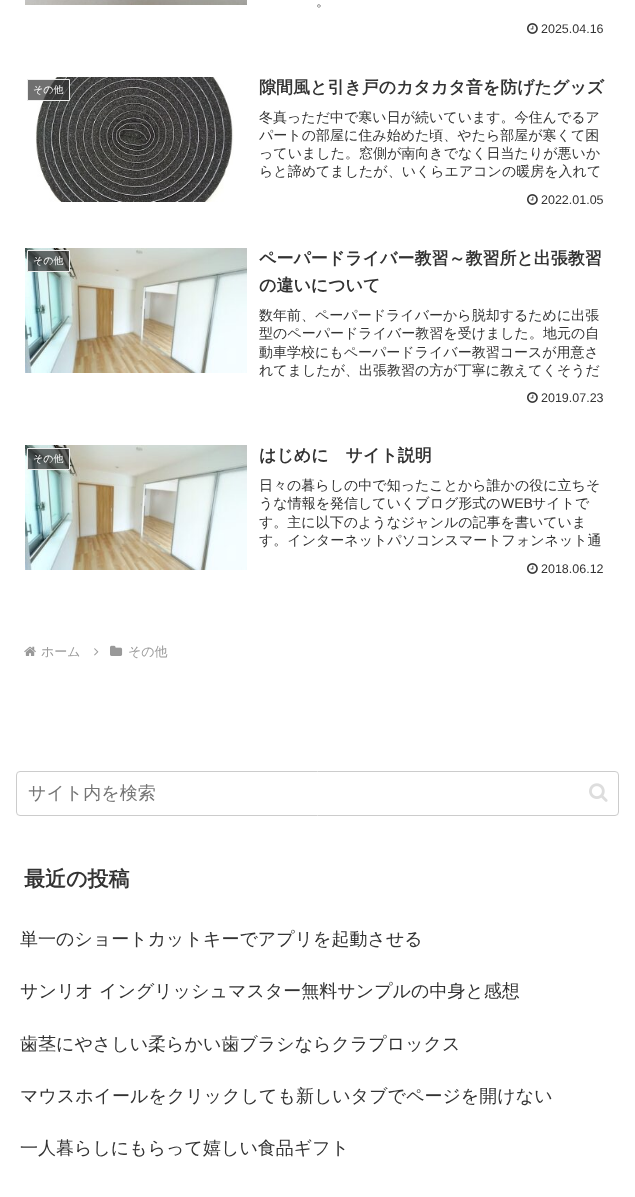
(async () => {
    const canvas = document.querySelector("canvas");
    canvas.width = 635;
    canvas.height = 1197;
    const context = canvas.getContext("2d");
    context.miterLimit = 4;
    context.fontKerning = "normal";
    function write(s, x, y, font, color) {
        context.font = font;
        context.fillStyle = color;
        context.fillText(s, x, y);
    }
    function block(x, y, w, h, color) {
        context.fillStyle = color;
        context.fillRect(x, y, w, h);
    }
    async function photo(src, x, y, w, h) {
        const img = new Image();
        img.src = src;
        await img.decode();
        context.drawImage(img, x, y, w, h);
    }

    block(0, 0, 635, 1197, "rgb(255, 255, 255)");
    await photo("media/1.png", 25, 0, 222, 5);
    write("。", 316, 6, "500 14px WenQuanYi Zen Hei", "rgb(51, 51, 51)");
    await photo("media/2.png", 527, 23, 11, 11);
    write("2025.04.16", 541, 33, "12.5px Liberation Sans", "rgb(51, 51, 51)");
    await photo("media/3.png", 35, 77, 199, 125);
    context.fillStyle = "rgba(51, 51, 51, 0.7)";
    context.beginPath();
    context.rect(27.5, 79.5, 42, 21);
    context.fill();
    context.strokeStyle = "rgb(238, 238, 238)";
    context.stroke();
    write("その他", 33, 93, "500 10px WenQuanYi Zen Hei", "rgb(255, 255, 255)");
    write("隙間風と引き戸のカタカタ音を防げたグッズ", 259, 93, "bold 17px WenQuanYi Zen Hei", "rgb(51, 51, 51)");
    write("冬真っただ中で寒い日が続いています。今住んでるア", 259, 122, "500 14px WenQuanYi Zen Hei", "rgb(51, 51, 51)");
    write("パートの部屋に住み始めた頃、やたら部屋が寒くて困", 259, 140, "500 14px WenQuanYi Zen Hei", "rgb(51, 51, 51)");
    write("っていました。窓側が南向きでなく日当たりが悪いか", 259, 158, "500 14px WenQuanYi Zen Hei", "rgb(51, 51, 51)");
    write("らと諦めてましたが、いくらエアコンの暖房を入れて", 259, 176, "500 14px WenQuanYi Zen Hei", "rgb(51, 51, 51)");
    await photo("media/2.png", 527, 194, 11, 11);
    write("2022.01.05", 541, 204, "12.5px Liberation Sans", "rgb(51, 51, 51)");
    await photo("media/4.png", 25, 248, 222, 125);
    context.fillStyle = "rgba(51, 51, 51, 0.7)";
    context.beginPath();
    context.rect(27.5, 250.5, 42, 21);
    context.fill();
    context.stroke();
    write("その他", 33, 264, "500 10px WenQuanYi Zen Hei", "rgb(255, 255, 255)");
    write("ペーパードライバー教習～教習所と出張教習", 259, 264, "bold 17px WenQuanYi Zen Hei", "rgb(51, 51, 51)");
    write("の違いについて", 259, 291, "bold 17px WenQuanYi Zen Hei", "rgb(51, 51, 51)");
    write("数年前、ペーパードライバーから脱却するために出張", 259, 320, "500 14px WenQuanYi Zen Hei", "rgb(51, 51, 51)");
    write("型のペーパードライバー教習を受けました。地元の自", 259, 338, "500 14px WenQuanYi Zen Hei", "rgb(51, 51, 51)");
    write("動車学校にもペーパードライバー教習コースが用意さ", 259, 357, "500 14px WenQuanYi Zen Hei", "rgb(51, 51, 51)");
    write("れてましたが、出張教習の方が丁寧に教えてくそうだ", 259, 375, "500 14px WenQuanYi Zen Hei", "rgb(51, 51, 51)");
    await photo("media/2.png", 527, 392, 11, 11);
    write("2019.07.23", 541, 402, "12.5px Liberation Sans", "rgb(51, 51, 51)");
    await photo("media/4.png", 25, 445, 222, 125);
    context.fillStyle = "rgba(51, 51, 51, 0.7)";
    context.beginPath();
    context.rect(27.5, 448.5, 42, 21);
    context.fill();
    context.stroke();
    write("その他", 33, 462, "500 10px WenQuanYi Zen Hei", "rgb(255, 255, 255)");
    write("はじめに　サイト説明", 259, 461, "bold 17px WenQuanYi Zen Hei", "rgb(51, 51, 51)");
    write("日々の暮らしの中で知ったことから誰かの役に立ちそ", 259, 490, "500 14px WenQuanYi Zen Hei", "rgb(51, 51, 51)");
    write("うな情報を発信していくブログ形式の", 259, 508, "500 14px WenQuanYi Zen Hei", "rgb(51, 51, 51)");
    write("WEB", 501, 508, "14px Liberation Sans", "rgb(51, 51, 51)");
    write("サイトで", 532, 508, "500 14px WenQuanYi Zen Hei", "rgb(51, 51, 51)");
    write("す。主に以下のようなジャンルの記事を書いていま", 259, 527, "500 14px WenQuanYi Zen Hei", "rgb(51, 51, 51)");
    write("す。インターネットパソコンスマートフォンネット通", 259, 545, "500 14px WenQuanYi Zen Hei", "rgb(51, 51, 51)");
    await photo("media/2.png", 527, 563, 11, 11);
    write("2018.06.12", 541, 573, "12.5px Liberation Sans", "rgb(51, 51, 51)");
    await photo("media/5.png", 24, 646, 12, 10);
    write("ホーム", 41, 656, "500 13px WenQuanYi Zen Hei", "rgb(153, 153, 153)");
    await photo("media/6.png", 94, 648, 5, 8);
    await photo("media/7.png", 110, 645, 13, 11);
    write("その他", 128, 656, "500 13px WenQuanYi Zen Hei", "rgb(153, 153, 153)");
    context.beginPath();
    context.roundRect(16.5, 771.5, 602, 44, 3.5);
    context.strokeStyle = "rgb(204, 204, 204)";
    context.stroke();
    write("サイト内を検索", 28, 799, "500 18px WenQuanYi Zen Hei", "rgb(117, 117, 117)");
    await photo("media/8.png", 589, 783, 19, 19);
    write("最近の投稿", 24, 886, "bold 21px WenQuanYi Zen Hei", "rgb(51, 51, 51)");
    write("単一のショートカットキーでアプリを起動させる", 20, 945, "500 18px WenQuanYi Zen Hei", "rgb(51, 51, 51)");
    write("サンリオ イングリッシュマスター無料サンプルの中身と感想", 20, 997, "500 18px WenQuanYi Zen Hei", "rgb(51, 51, 51)");
    write("歯茎にやさしい柔らかい歯ブラシならクラプロックス", 20, 1050, "500 18px WenQuanYi Zen Hei", "rgb(51, 51, 51)");
    write("マウスホイールをクリックしても新しいタブでページを開けない", 20, 1102, "500 18px WenQuanYi Zen Hei", "rgb(51, 51, 51)");
    write("一人暮らしにもらって嬉しい食品ギフト", 20, 1154, "500 18px WenQuanYi Zen Hei", "rgb(51, 51, 51)");
})();
